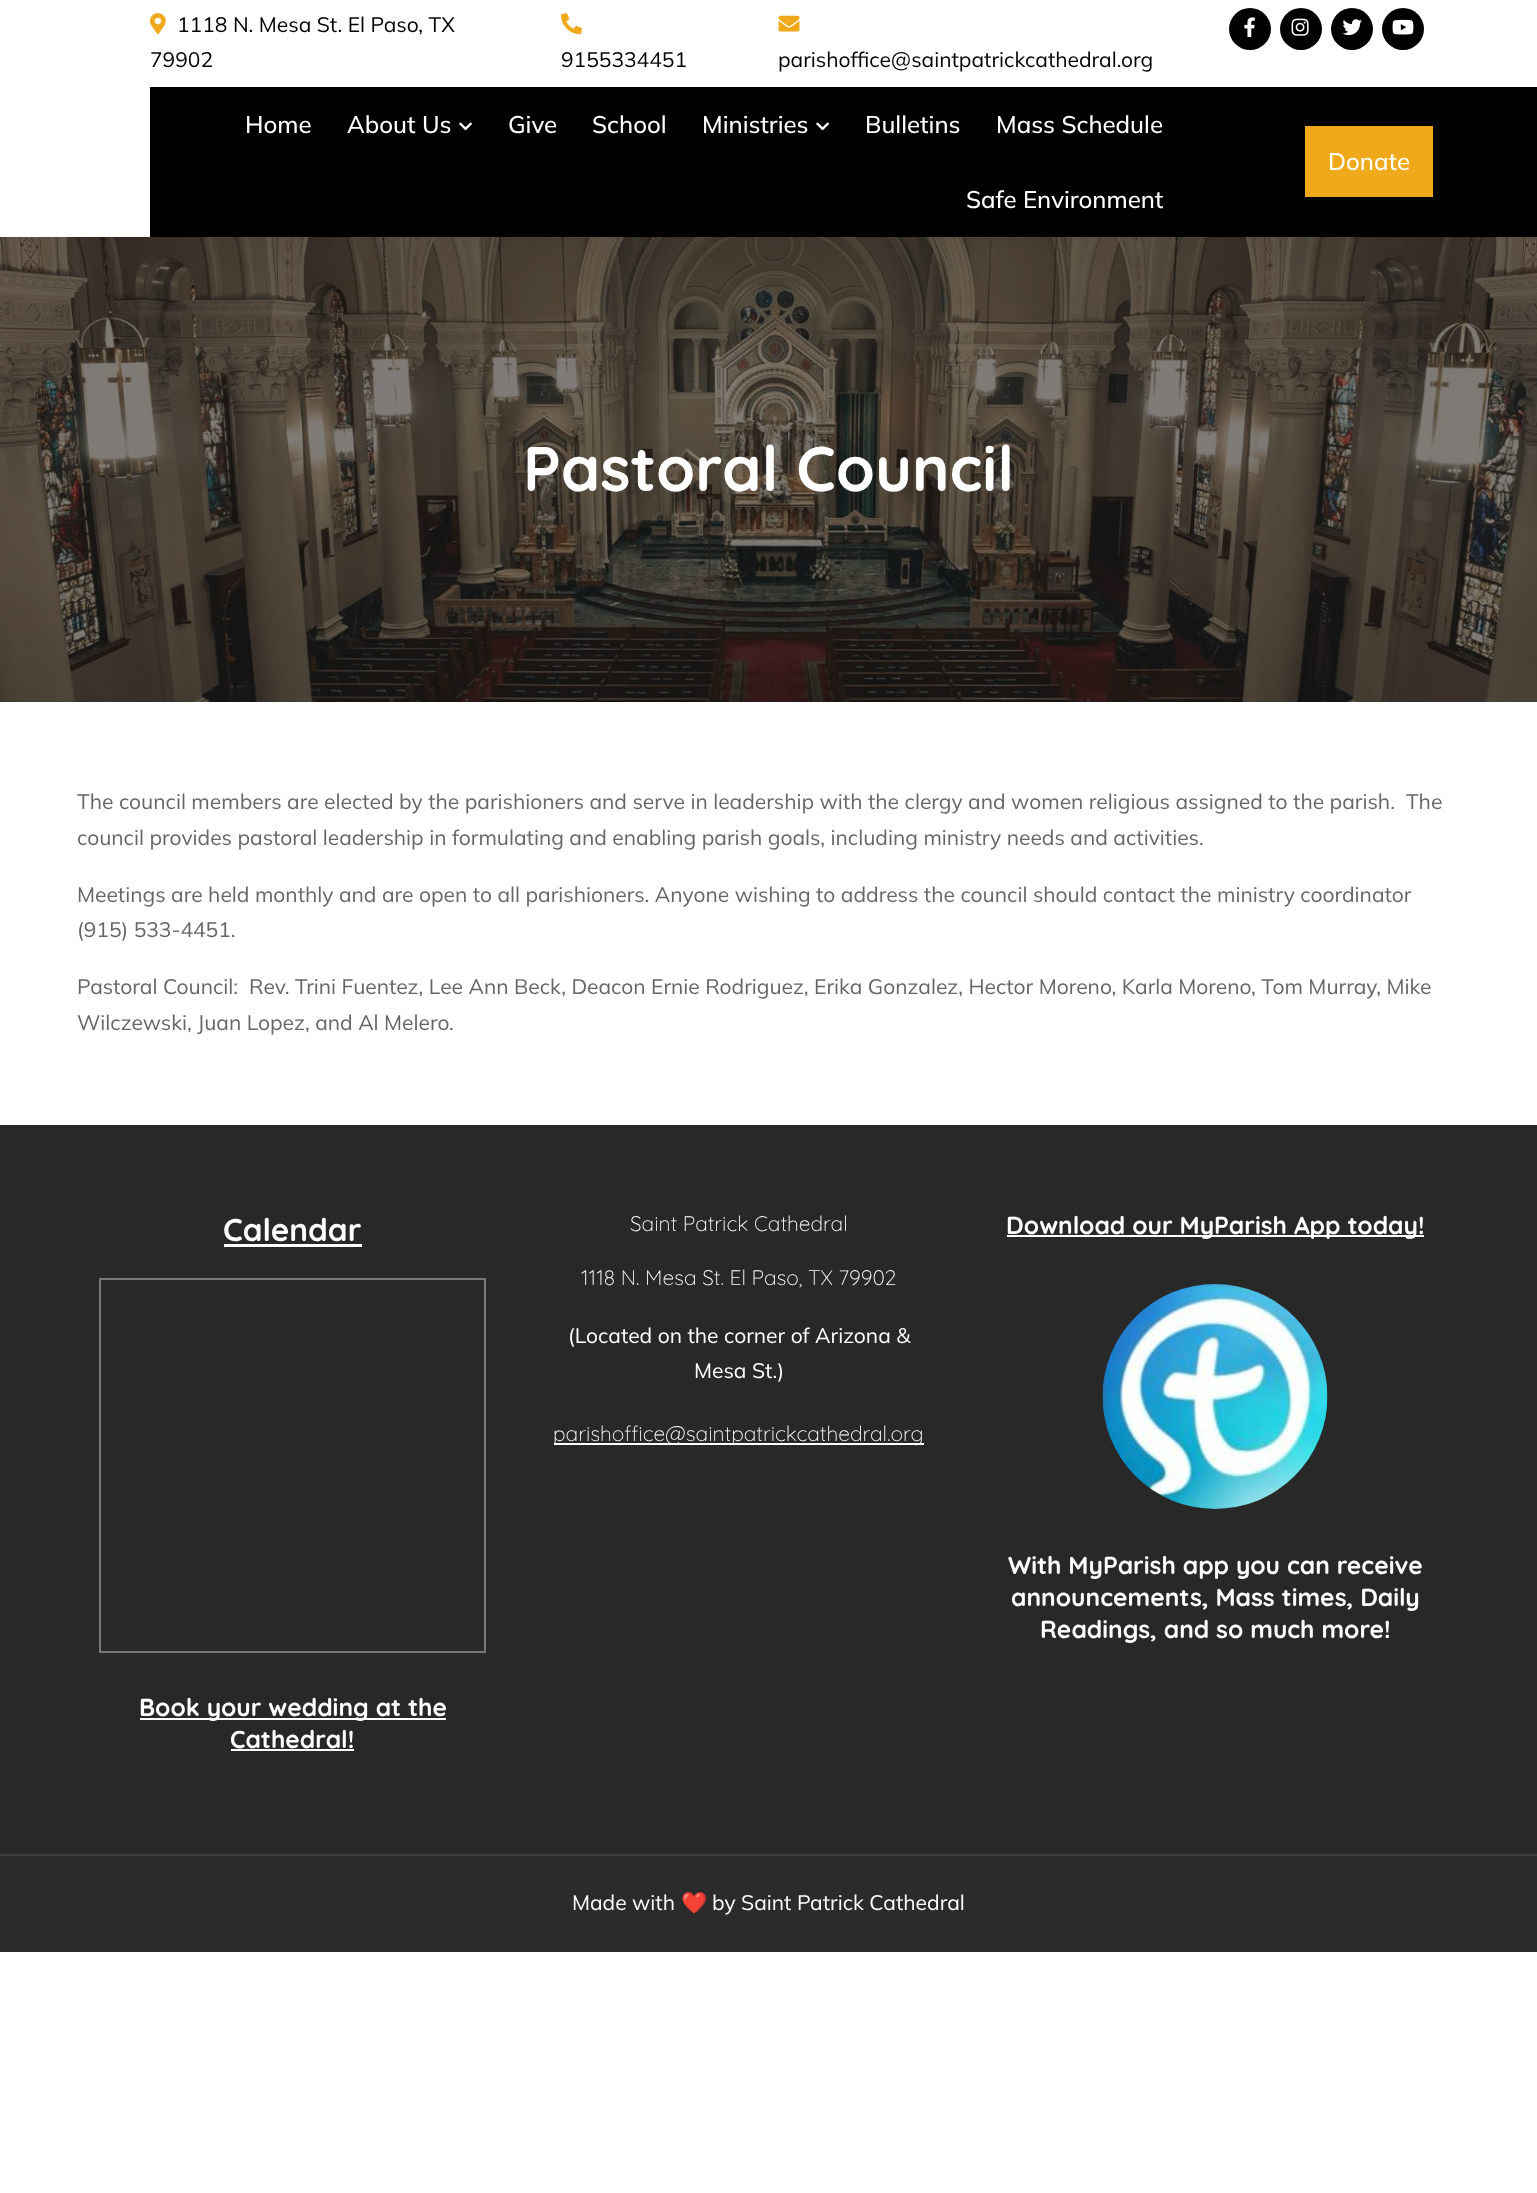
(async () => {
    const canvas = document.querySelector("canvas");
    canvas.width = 1537;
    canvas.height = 2193;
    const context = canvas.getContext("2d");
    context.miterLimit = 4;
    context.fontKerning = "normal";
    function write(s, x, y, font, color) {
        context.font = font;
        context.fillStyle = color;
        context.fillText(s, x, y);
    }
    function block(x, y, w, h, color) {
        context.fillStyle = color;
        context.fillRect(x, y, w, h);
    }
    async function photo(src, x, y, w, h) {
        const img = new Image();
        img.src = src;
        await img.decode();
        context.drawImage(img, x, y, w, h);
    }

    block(0, 0, 1537, 2193, "rgb(255, 255, 255)");
    await photo("media/1.png", 150, 13, 16, 22);
    write("1118 N. Mesa St. El Paso, TX", 177, 32, "21px Mulish", "rgb(0, 0, 0)");
    write("79902", 150, 67, "21px Mulish", "rgb(0, 0, 0)");
    await photo("media/2.png", 561, 13, 21, 22);
    write("9155334451", 561, 67, "21px Mulish", "rgb(0, 0, 0)");
    await photo("media/3.png", 778, 15, 22, 17);
    write("parishoffice@saintpatrickcathedral.org", 778, 67, "21px Mulish", "rgb(0, 0, 0)");
    context.beginPath();
    context.arc(1250, 29, 21, 0, Math.PI * 2);
    context.fill();
    await photo("media/4.png", 1244, 17, 11, 20);
    context.beginPath();
    context.arc(1301, 29, 21, 0, Math.PI * 2);
    context.fill();
    await photo("media/5.png", 1291, 18, 18, 18);
    context.beginPath();
    context.arc(1352, 29, 21, 0, Math.PI * 2);
    context.fill();
    await photo("media/6.png", 1342, 19, 20, 17);
    context.beginPath();
    context.arc(1403, 29, 21, 0, Math.PI * 2);
    context.fill();
    await photo("media/7.png", 1392, 19, 22, 16);
    block(150, 87, 1387, 150, "rgb(0, 0, 0)");
    write("Home", 245, 133, "500 24px Mulish", "rgb(255, 255, 255)");
    write("About Us", 347, 133, "500 24px Mulish", "rgb(255, 255, 255)");
    await photo("media/8.png", 459, 122, 13, 9);
    write("Give", 508, 133, "500 24px Mulish", "rgb(255, 255, 255)");
    write("School", 592, 133, "500 24px Mulish", "rgb(255, 255, 255)");
    write("Ministries", 702, 133, "500 24px Mulish", "rgb(255, 255, 255)");
    await photo("media/8.png", 816, 122, 13, 9);
    write("Bulletins", 865, 133, "500 24px Mulish", "rgb(255, 255, 255)");
    write("Mass Schedule", 996, 133, "500 24px Mulish", "rgb(255, 255, 255)");
    write("Safe Environment", 966, 208, "500 24px Mulish", "rgb(255, 255, 255)");
    block(1305, 126, 128, 71, "rgb(241, 169, 28)");
    write("Donate", 1328, 170, "500 24px Mulish", "rgb(255, 255, 255)");
    await photo("media/9.png", 0, 237, 1537, 465);
    write("Pastoral Council", 523, 491, "bold 63px Quicksand", "rgb(255, 255, 255)");
    write("The council members are elected by the parishioners and serve in leadership with the clergy and women religious assigned to the parish.  The", 77, 809, "21px Mulish", "rgb(102, 102, 102)");
    write("council provides pastoral leadership in formulating and enabling parish goals, including ministry needs and activities.", 77, 845, "21px Mulish", "rgb(102, 102, 102)");
    write("Meetings are held monthly and are open to all parishioners. Anyone wishing to address the council should contact the ministry coordinator", 77, 902, "21px Mulish", "rgb(102, 102, 102)");
    write("(915) 533-4451.", 77, 937, "21px Mulish", "rgb(102, 102, 102)");
    write("Pastoral Council:  Rev. Trini Fuentez, Lee Ann Beck, Deacon Ernie Rodriguez, Erika Gonzalez, Hector Moreno, Karla Moreno, Tom Murray, Mike", 77, 994, "21px Mulish", "rgb(102, 102, 102)");
    write("Wilczewski, Juan Lopez, and Al Melero.", 77, 1030, "21px Mulish", "rgb(102, 102, 102)");
    block(0, 1125, 1537, 729, "rgb(40, 40, 40)");
    block(0, 1854, 1537, 2, "rgb(62, 62, 62)");
    write("Calendar", 223, 1241, "bold 31.5px Quicksand", "rgb(255, 255, 255)");
    block(224, 1244, 138, 3, "rgb(255, 255, 255)");
    context.strokeStyle = "rgb(119, 119, 119)";
    context.lineWidth = 2;
    context.strokeRect(100, 1279, 385, 373);
    block(140, 1718, 306, 2, "rgb(255, 255, 255)");
    write("Book your wedding at the", 139, 1716, "bold 24.6px Quicksand", "rgb(255, 255, 255)");
    write("Cathedral!", 230, 1748, "bold 24.6px Quicksand", "rgb(255, 255, 255)");
    block(231, 1749, 123, 2, "rgb(255, 255, 255)");
    write("Saint Patrick Cathedral", 630, 1231, "300 21px Quicksand", "rgb(255, 255, 255)");
    write("1118 N. Mesa St. El Paso, TX 79902", 581, 1285, "300 21px Quicksand", "rgb(255, 255, 255)");
    write("(Located on the corner of Arizona &", 568, 1343, "21px Mulish", "rgb(255, 255, 255)");
    write("Mesa St.)", 694, 1378, "21px Mulish", "rgb(255, 255, 255)");
    block(554, 1443, 370, 2, "rgb(255, 255, 255)");
    write("parishoffice@saintpatrickcathedral.org", 553, 1441, "300 21px Quicksand", "rgb(255, 255, 255)");
    block(1007, 1235, 417, 2, "rgb(255, 255, 255)");
    write("Download our MyParish App today!", 1006, 1234, "bold 24.6px Quicksand", "rgb(255, 255, 255)");
    await photo("media/10.png", 1102, 1284, 226, 225);
    write("With MyParish app you can receive", 1008, 1574, "bold 24.6px Quicksand", "rgb(255, 255, 255)");
    write("announcements, Mass times, Daily", 1011, 1606, "bold 24.6px Quicksand", "rgb(255, 255, 255)");
    write("Readings, and so much more!", 1040, 1638, "bold 24.6px Quicksand", "rgb(255, 255, 255)");
    block(0, 1856, 1537, 96, "rgb(43, 43, 43)");
    write("Made with", 572, 1910, "21px Mulish", "rgb(255, 255, 255)");
    write("❤️", 681, 1910, "21px Noto Color Emoji", "rgb(255, 255, 255)");
    write("by Saint Patrick Cathedral", 712, 1910, "21px Mulish", "rgb(255, 255, 255)");
})();
